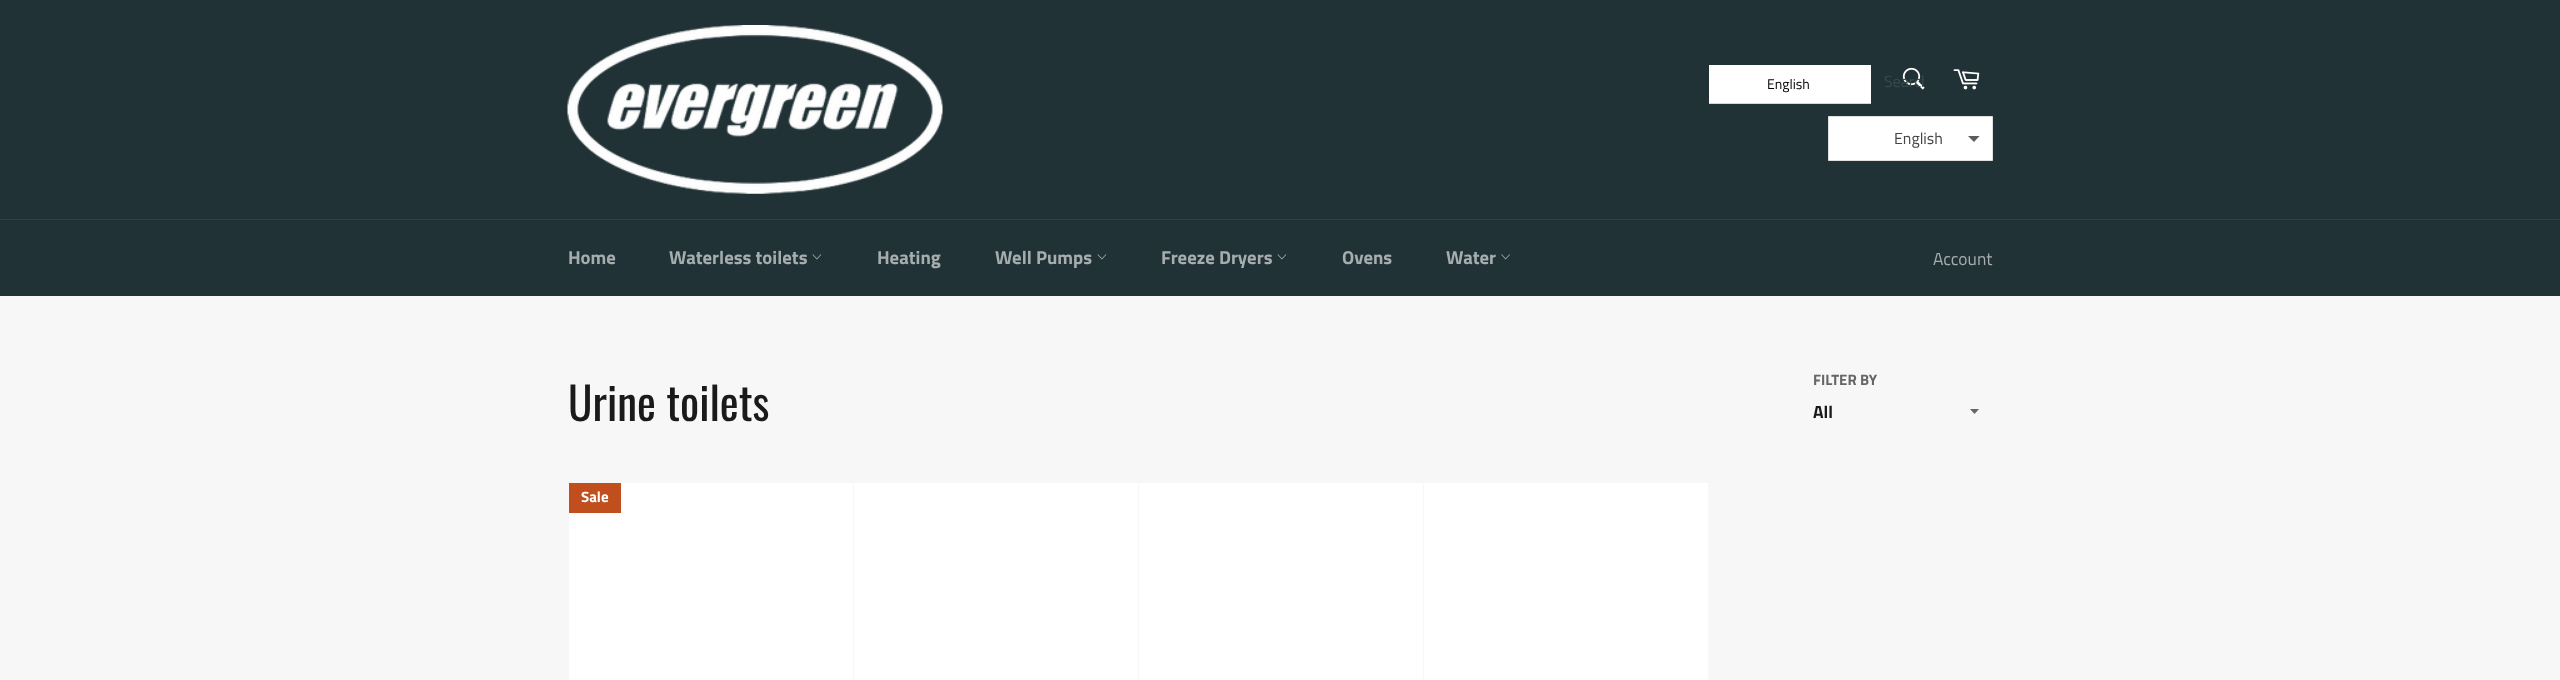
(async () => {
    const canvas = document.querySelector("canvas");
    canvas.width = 2560;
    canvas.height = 680;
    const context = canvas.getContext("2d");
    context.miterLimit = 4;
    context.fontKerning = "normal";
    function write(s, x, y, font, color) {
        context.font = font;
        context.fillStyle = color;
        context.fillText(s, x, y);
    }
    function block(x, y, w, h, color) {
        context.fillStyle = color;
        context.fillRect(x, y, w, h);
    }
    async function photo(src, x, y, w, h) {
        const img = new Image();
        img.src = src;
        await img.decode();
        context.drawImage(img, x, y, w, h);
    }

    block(0, 0, 2560, 680, "rgb(247, 247, 247)");
    block(0, 0, 2560, 219, "rgb(33, 50, 54)");
    await photo("media/1.png", 567, 25, 376, 169);
    block(1709, 65, 162, 38, "rgb(255, 255, 255)");
    block(1709, 103, 162, 1, "rgb(212, 212, 212)");
    write("English", 1767, 89, "14px Titillium Web", "rgb(0, 0, 0)");
    await photo("media/2.png", 1902, 67, 23, 23);
    context.save();
    context.beginPath();
    context.rect(1884, 68, 40, 25);
    context.clip();
    write("Search", 1884, 87, "16px Titillium Web", "rgb(58, 73, 77)");
    context.restore();
    await photo("media/3.png", 1953, 69, 27, 21);
    context.fillStyle = "rgb(255, 255, 255)";
    context.beginPath();
    context.rect(1828.5, 116.5, 164, 44);
    context.fill();
    context.strokeStyle = "rgb(224, 224, 224)";
    context.stroke();
    write("English", 1894, 144, "16px Titillium Web", "rgb(68, 68, 68)");
    context.save();
    context.beginPath();
    context.rect(1968, 136, 12, 7);
    context.clip();
    context.fillStyle = "rgb(92, 92, 92)";
    context.beginPath();
    context.moveTo(1980, 135.5);
    context.lineTo(1974, 142);
    context.lineTo(1967.5, 135.5);
    context.closePath();
    context.fill("evenodd");
    context.restore();
    block(0, 220, 2560, 76, "rgb(33, 50, 54)");
    block(0, 219, 2560, 1, "rgb(43, 65, 70)");
    write("Home", 568, 264, "bold 18.75px Titillium Web", "rgb(166, 173, 175)");
    write("Waterless toilets", 669, 264, "bold 18.75px Titillium Web", "rgb(166, 173, 175)");
    await photo("media/4.png", 812, 254, 10, 6);
    write("Heating", 877, 264, "bold 18.75px Titillium Web", "rgb(166, 173, 175)");
    write("Well Pumps", 995, 264, "bold 18.75px Titillium Web", "rgb(166, 173, 175)");
    await photo("media/4.png", 1097, 254, 10, 6);
    write("Freeze Dryers", 1161, 264, "bold 18.75px Titillium Web", "rgb(166, 173, 175)");
    await photo("media/4.png", 1277, 254, 10, 6);
    write("Ovens", 1342, 264, "bold 18.75px Titillium Web", "rgb(166, 173, 175)");
    write("Water", 1446, 264, "bold 18.75px Titillium Web", "rgb(166, 173, 175)");
    await photo("media/5.png", 1501, 254, 9, 6);
    write("Account", 1933, 265, "17.5px Titillium Web", "rgb(166, 173, 175)");
    write("Urine toilets", 568, 421, "45px Oswald", "rgb(26, 26, 26)");
    write("FILTER BY", 1813, 385, "bold 15px Titillium Web", "rgb(102, 102, 102)");
    context.beginPath();
    context.moveTo(1970, 409);
    context.lineTo(1974.5, 414);
    context.lineTo(1979, 409);
    context.closePath();
    context.fill();
    write("All", 1813, 418, "bold 17.5px Titillium Web", "rgb(26, 26, 26)");
    block(569, 483, 284, 197, "rgb(255, 255, 255)");
    block(569, 483, 52, 30, "rgb(192, 79, 29)");
    write("Sale", 581, 502, "bold 15px Titillium Web", "rgb(255, 255, 255)");
    block(854, 483, 284, 197, "rgb(255, 255, 255)");
    block(1139, 483, 284, 197, "rgb(255, 255, 255)");
    block(1424, 483, 284, 197, "rgb(255, 255, 255)");
})();
